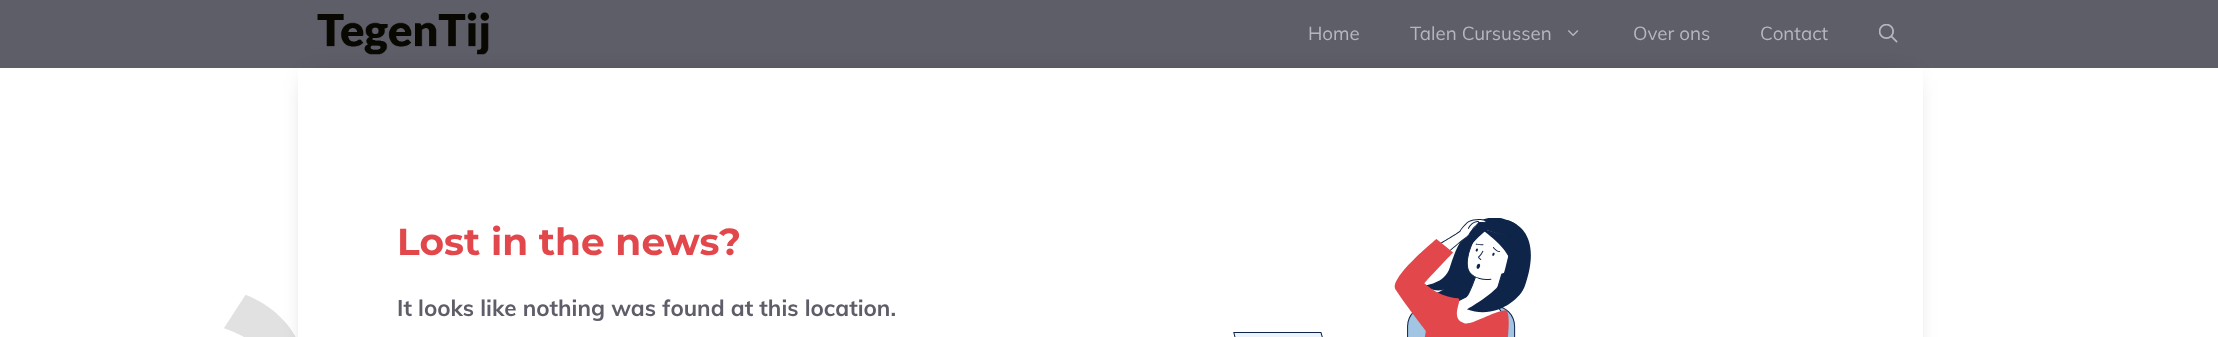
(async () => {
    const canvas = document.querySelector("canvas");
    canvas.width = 2218;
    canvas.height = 337;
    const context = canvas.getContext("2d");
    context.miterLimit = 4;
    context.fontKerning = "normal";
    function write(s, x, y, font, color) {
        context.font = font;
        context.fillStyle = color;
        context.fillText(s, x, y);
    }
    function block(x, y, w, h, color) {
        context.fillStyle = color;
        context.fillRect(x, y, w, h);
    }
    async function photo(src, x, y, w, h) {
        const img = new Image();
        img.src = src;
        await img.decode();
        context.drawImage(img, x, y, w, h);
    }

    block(0, 0, 2218, 337, "rgb(255, 255, 255)");
    await photo("media/1.png", 224, 295, 72, 42);
    block(0, 0, 2218, 68, "rgb(94, 94, 105)");
    context.fillStyle = "rgba(0, 0, 0, 0.3)";
    context.filter = "blur(12.5px)";
    context.beginPath();
    context.rect(310, 80, 1600, 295);
    context.fill();
    context.filter = "none";
    await photo("media/2.png", 317, 12, 172, 43);
    write("Home", 1308, 40, "18.75px Muli", "rgb(181, 183, 191)");
    write("Talen Cursussen", 1410, 40, "18.75px Muli", "rgb(181, 183, 191)");
    await photo("media/3.png", 1568, 30, 11, 6);
    write("Over ons", 1633, 40, "18.75px Muli", "rgb(181, 183, 191)");
    write("Contact", 1760, 40, "18.75px Muli", "rgb(181, 183, 191)");
    await photo("media/4.png", 1879, 24, 19, 19);
    block(298, 68, 1625, 269, "rgb(255, 255, 255)");
    write("Lost in the news?", 397, 255, "bold 37.5px Montserrat", "rgb(226, 71, 75)");
    write("It looks like nothing was found at this location.", 397, 316, "bold 22.5px Muli", "rgb(94, 94, 105)");
    await photo("media/5.png", 1233, 218, 298, 119);
})();
